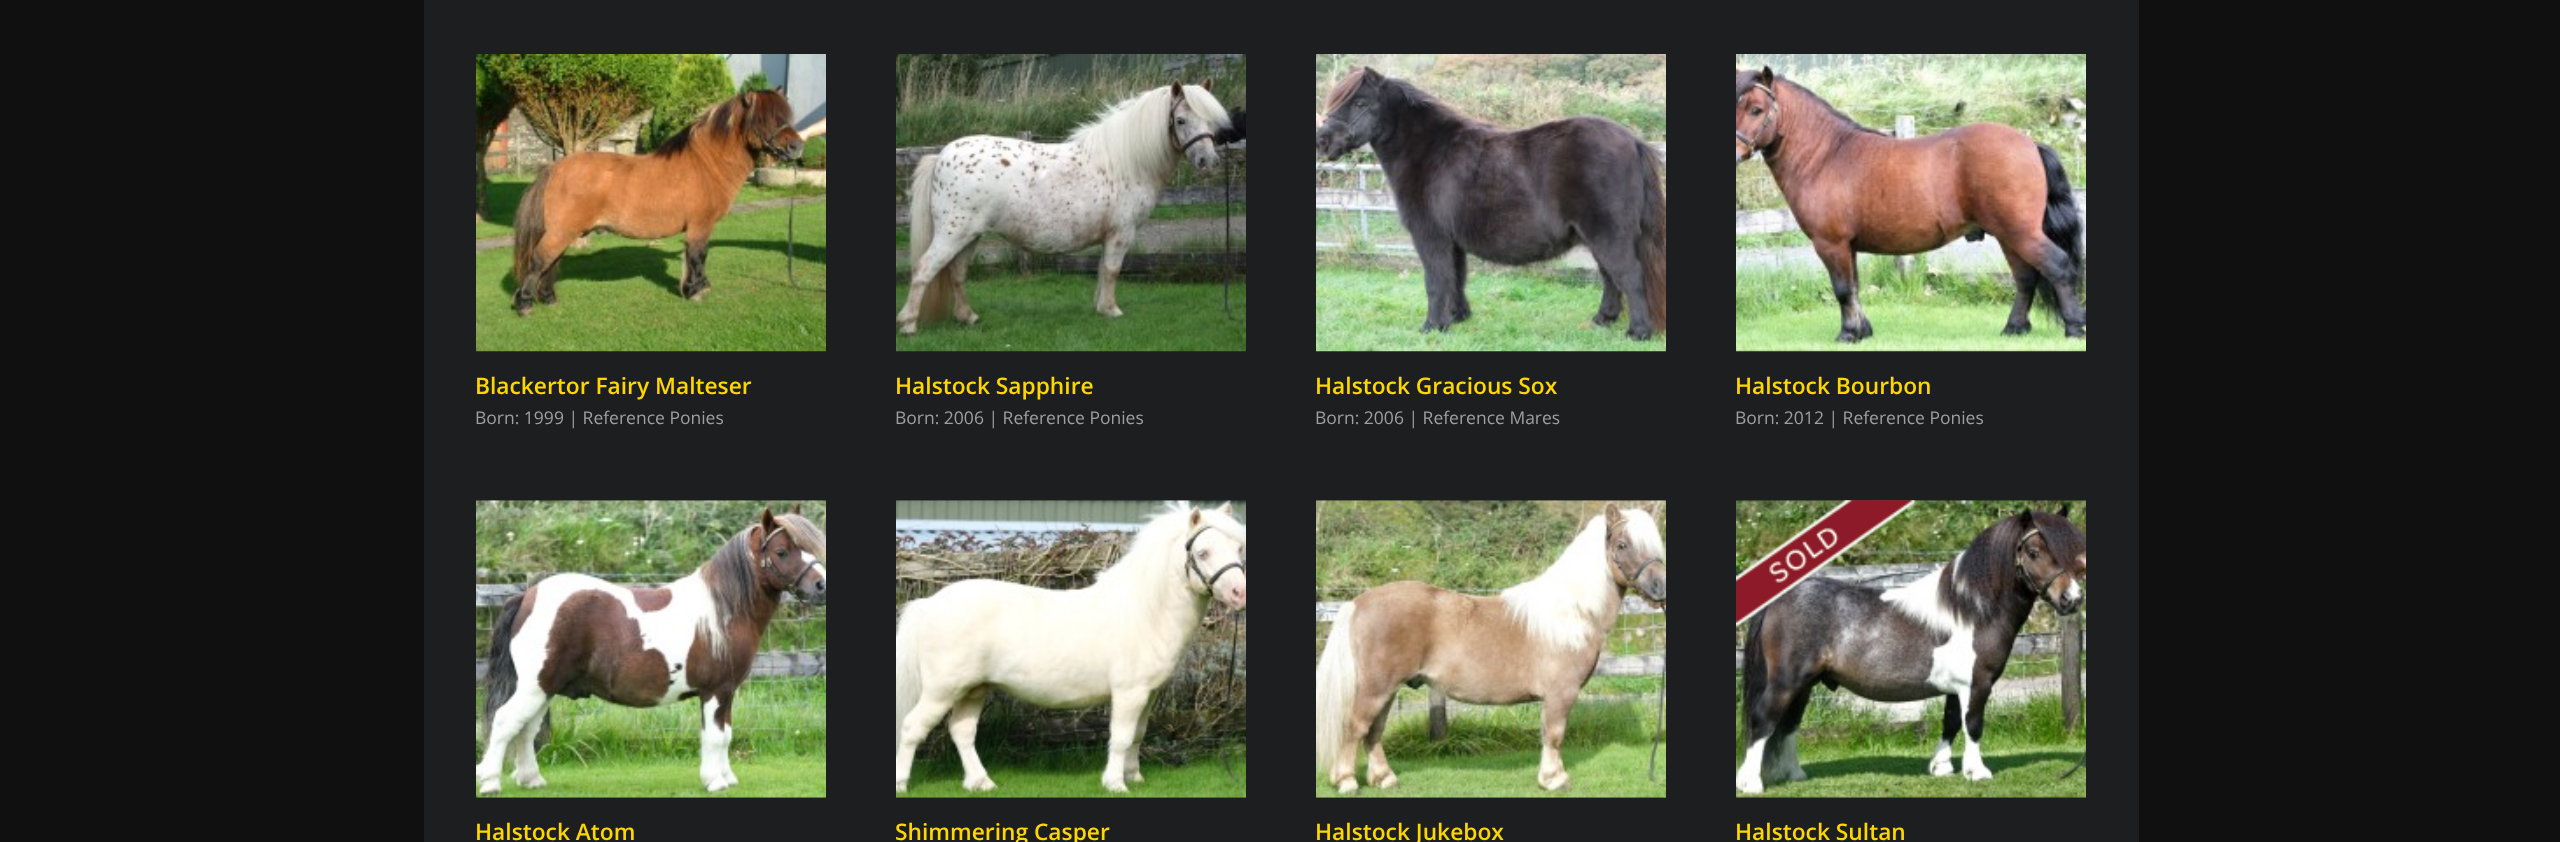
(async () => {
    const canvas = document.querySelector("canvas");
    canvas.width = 2560;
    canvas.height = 842;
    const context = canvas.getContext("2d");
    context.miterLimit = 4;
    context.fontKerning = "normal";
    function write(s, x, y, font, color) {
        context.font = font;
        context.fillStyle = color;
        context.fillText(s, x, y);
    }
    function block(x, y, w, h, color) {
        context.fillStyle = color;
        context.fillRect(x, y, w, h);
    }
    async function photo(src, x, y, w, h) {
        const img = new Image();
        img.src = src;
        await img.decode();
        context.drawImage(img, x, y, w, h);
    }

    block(0, 0, 2560, 842, "rgb(16, 16, 16)");
    block(424, 0, 1715, 842, "rgb(29, 30, 32)");
    await photo("media/1.png", 476, 54, 350, 298);
    write("Blackertor Fairy Malteser", 475, 394, "600 22.75px Open Sans", "rgb(255, 215, 0)");
    write("Born: 1999 | Reference Ponies", 475, 424, "17.5px Open Sans", "rgb(159, 159, 159)");
    await photo("media/2.png", 896, 54, 350, 298);
    write("Halstock Sapphire", 895, 394, "600 22.75px Open Sans", "rgb(255, 215, 0)");
    write("Born: 2006 | Reference Ponies", 895, 424, "17.5px Open Sans", "rgb(159, 159, 159)");
    await photo("media/3.png", 1316, 54, 350, 298);
    write("Halstock Gracious Sox", 1315, 394, "600 22.75px Open Sans", "rgb(255, 215, 0)");
    write("Born: 2006 | Reference Mares", 1315, 424, "17.5px Open Sans", "rgb(159, 159, 159)");
    await photo("media/4.png", 1736, 54, 350, 298);
    write("Halstock Bourbon", 1735, 394, "600 22.75px Open Sans", "rgb(255, 215, 0)");
    write("Born: 2012 | Reference Ponies", 1735, 424, "17.5px Open Sans", "rgb(159, 159, 159)");
    await photo("media/5.png", 476, 500, 350, 298);
    write("Halstock Atom", 475, 840, "600 22.75px Open Sans", "rgb(255, 215, 0)");
    await photo("media/6.png", 896, 500, 350, 298);
    write("Shimmering Casper", 895, 840, "600 22.75px Open Sans", "rgb(255, 215, 0)");
    await photo("media/7.png", 1316, 500, 350, 298);
    write("Halstock Jukebox", 1315, 840, "600 22.75px Open Sans", "rgb(255, 215, 0)");
    await photo("media/8.png", 1736, 500, 350, 298);
    await photo("media/9.png", 1736, 500, 181, 127);
    write("Halstock Sultan", 1735, 840, "600 22.75px Open Sans", "rgb(255, 215, 0)");
})();
